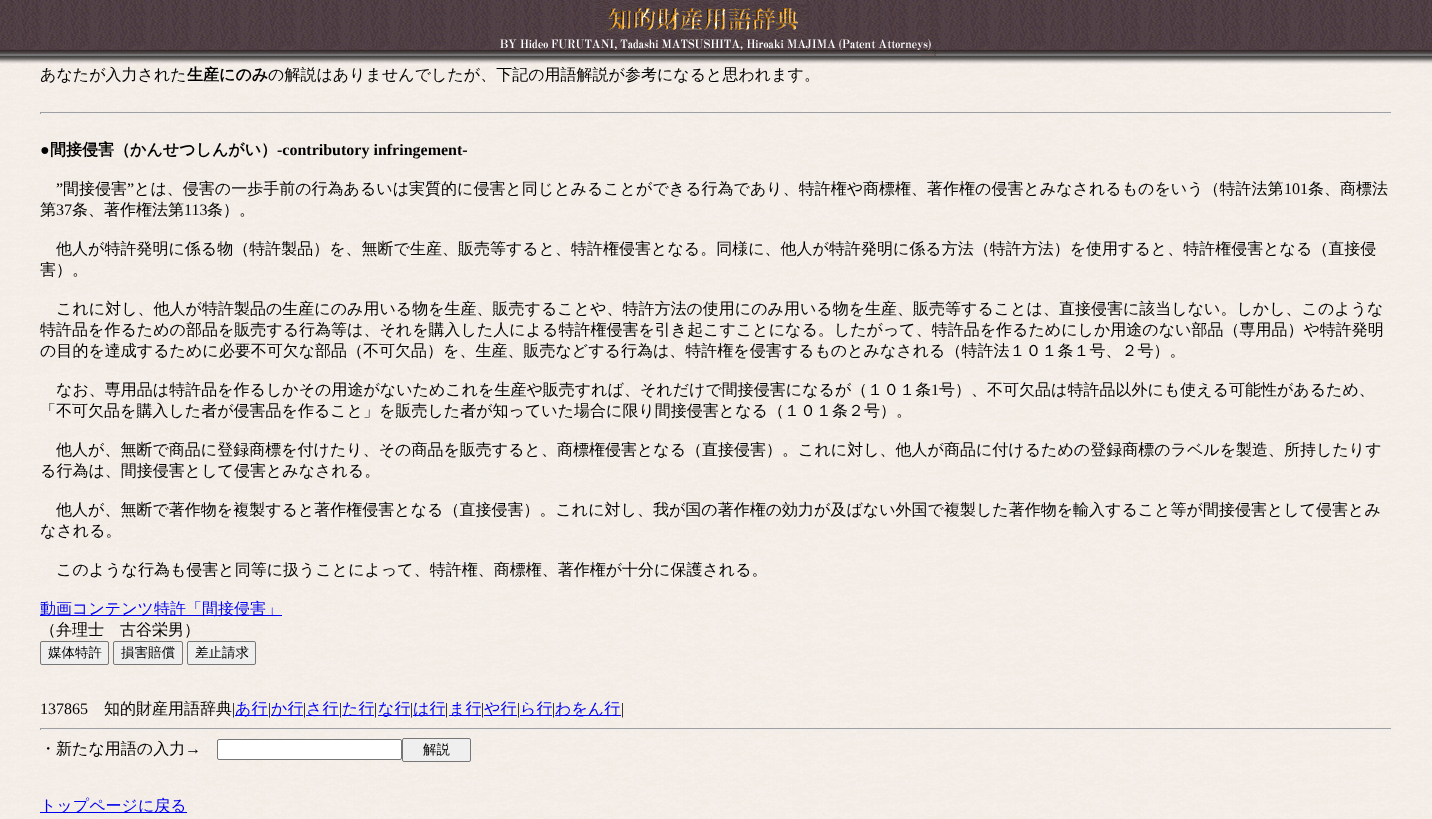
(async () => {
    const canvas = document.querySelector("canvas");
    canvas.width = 1432;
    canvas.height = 819;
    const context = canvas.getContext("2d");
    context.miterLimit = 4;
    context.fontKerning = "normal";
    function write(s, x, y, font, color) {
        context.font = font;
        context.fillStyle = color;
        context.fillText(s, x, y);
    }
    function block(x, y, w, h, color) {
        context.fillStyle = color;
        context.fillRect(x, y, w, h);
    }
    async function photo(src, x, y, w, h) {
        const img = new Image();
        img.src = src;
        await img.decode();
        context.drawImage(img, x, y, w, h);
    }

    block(0, 0, 1432, 819, "rgb(255, 255, 255)");
    await photo("media/1.png", 0, 0, 1432, 65);
    await photo("media/2.png", 497, 0, 439, 65);
    await photo("media/3.png", 0, 65, 1432, 754);
    write("あなたが入力された", 40, 80, "500 16px WenQuanYi Zen Hei", "rgb(0, 0, 0)");
    write("生産にのみ", 187, 80, "bold 16px WenQuanYi Zen Hei", "rgb(0, 0, 0)");
    write("の解説はありませんでしたが、下記の用語解説が参考になると思われます。", 268, 80, "500 16px WenQuanYi Zen Hei", "rgb(0, 0, 0)");
    block(40, 112, 1352, 1, "rgb(159, 159, 159)");
    block(1391, 112, 1, 2, "rgb(238, 238, 238)");
    block(40, 113, 1352, 1, "rgb(238, 238, 238)");
    block(40, 112, 1, 2, "rgb(159, 159, 159)");
    write("●", 40, 155, "bold 16px Liberation Serif", "rgb(0, 0, 0)");
    write("間接侵害（かんせつしんがい）", 50, 155, "bold 16px WenQuanYi Zen Hei", "rgb(0, 0, 0)");
    write("-contributory infringement-", 277, 155, "bold 16px Liberation Serif", "rgb(0, 0, 0)");
    write("”", 56, 194, "16px Liberation Serif", "rgb(0, 0, 0)");
    write("間接侵害", 63, 194, "500 16px WenQuanYi Zen Hei", "rgb(0, 0, 0)");
    write("”", 127, 194, "16px Liberation Serif", "rgb(0, 0, 0)");
    write("とは、侵害の一歩手前の行為あるいは実質的に侵害と同じとみることができる行為であり、特許権や商標権、著作権の侵害とみなされるものをいう（特許法第", 134, 194, "500 16px WenQuanYi Zen Hei", "rgb(0, 0, 0)");
    write("101", 1284, 194, "16px Liberation Serif", "rgb(0, 0, 0)");
    write("条、商標法", 1308, 194, "500 16px WenQuanYi Zen Hei", "rgb(0, 0, 0)");
    write("第", 40, 215, "500 16px WenQuanYi Zen Hei", "rgb(0, 0, 0)");
    write("37", 56, 215, "16px Liberation Serif", "rgb(0, 0, 0)");
    write("条、著作権法第", 72, 215, "500 16px WenQuanYi Zen Hei", "rgb(0, 0, 0)");
    write("113", 184, 215, "16px Liberation Serif", "rgb(0, 0, 0)");
    write("条）。", 207, 215, "500 16px WenQuanYi Zen Hei", "rgb(0, 0, 0)");
    write("他人が特許発明に係る物（特許製品）を、無断で生産、販売等すると、特許権侵害となる。同様に、他人が特許発明に係る方法（特許方法）を使用すると、特許権侵害となる（直接侵", 56, 254, "500 16px WenQuanYi Zen Hei", "rgb(0, 0, 0)");
    write("害）。", 40, 275, "500 16px WenQuanYi Zen Hei", "rgb(0, 0, 0)");
    write("これに対し、他人が特許製品の生産にのみ用いる物を生産、販売することや、特許方法の使用にのみ用いる物を生産、販売等することは、直接侵害に該当しない。しかし、このような", 56, 314, "500 16px WenQuanYi Zen Hei", "rgb(0, 0, 0)");
    write("特許品を作るための部品を販売する行為等は、それを購入した人による特許権侵害を引き起こすことになる。したがって、特許品を作るためにしか用途のない部品（専用品）や特許発明", 40, 335, "500 16px WenQuanYi Zen Hei", "rgb(0, 0, 0)");
    write("の目的を達成するために必要不可欠な部品（不可欠品）を、生産、販売などする行為は、特許権を侵害するものとみなされる（特許法１０１条１号、２号）。", 40, 356, "500 16px WenQuanYi Zen Hei", "rgb(0, 0, 0)");
    write("なお、専用品は特許品を作るしかその用途がないためこれを生産や販売すれば、それだけで間接侵害になるが（１０１条", 56, 395, "500 16px WenQuanYi Zen Hei", "rgb(0, 0, 0)");
    write("1", 931, 395, "16px Liberation Serif", "rgb(0, 0, 0)");
    write("号）、不可欠品は特許品以外にも使える可能性があるため、", 939, 395, "500 16px WenQuanYi Zen Hei", "rgb(0, 0, 0)");
    write("「不可欠品を購入した者が侵害品を作ること」を販売した者が知っていた場合に限り間接侵害となる（１０１条２号）。", 40, 416, "500 16px WenQuanYi Zen Hei", "rgb(0, 0, 0)");
    write("他人が、無断で商品に登録商標を付けたり、その商品を販売すると、商標権侵害となる（直接侵害）。これに対し、他人が商品に付けるための登録商標のラベルを製造、所持したりす", 56, 455, "500 16px WenQuanYi Zen Hei", "rgb(0, 0, 0)");
    write("る行為は、間接侵害として侵害とみなされる。", 40, 476, "500 16px WenQuanYi Zen Hei", "rgb(0, 0, 0)");
    write("他人が、無断で著作物を複製すると著作権侵害となる（直接侵害）。これに対し、我が国の著作権の効力が及ばない外国で複製した著作物を輸入すること等が間接侵害として侵害とみ", 56, 515, "500 16px WenQuanYi Zen Hei", "rgb(0, 0, 0)");
    write("なされる。", 40, 536, "500 16px WenQuanYi Zen Hei", "rgb(0, 0, 0)");
    write("このような行為も侵害と同等に扱うことによって、特許権、商標権、著作権が十分に保護される。", 56, 575, "500 16px WenQuanYi Zen Hei", "rgb(0, 0, 0)");
    block(40, 615, 242, 1, "rgb(0, 0, 238)");
    write("動画コンテンツ特許「間接侵害」", 40, 614, "500 16px WenQuanYi Zen Hei", "rgb(0, 0, 238)");
    write("（弁理士　古谷栄男）", 40, 635, "500 16px WenQuanYi Zen Hei", "rgb(0, 0, 0)");
    context.fillStyle = "rgb(239, 239, 239)";
    context.beginPath();
    context.roundRect(40.5, 641.5, 68, 23, 1.5);
    context.fill();
    context.strokeStyle = "rgb(118, 118, 118)";
    context.stroke();
    write("媒体特許", 48, 657, "500 13.5px WenQuanYi Zen Hei", "rgb(0, 0, 0)");
    context.fillStyle = "rgb(239, 239, 239)";
    context.beginPath();
    context.roundRect(113.5, 641.5, 69, 23, 1.5);
    context.fill();
    context.stroke();
    write("損害賠償", 121, 657, "500 13.5px WenQuanYi Zen Hei", "rgb(0, 0, 0)");
    context.fillStyle = "rgb(239, 239, 239)";
    context.beginPath();
    context.roundRect(187.5, 641.5, 68, 23, 1.5);
    context.fill();
    context.stroke();
    write("差止請求", 195, 657, "500 13.5px WenQuanYi Zen Hei", "rgb(0, 0, 0)");
    write("137865", 40, 714, "16px Liberation Serif", "rgb(0, 0, 0)");
    write("知的財産用語辞典", 104, 714, "500 16px WenQuanYi Zen Hei", "rgb(0, 0, 0)");
    write("|", 232, 714, "16px Liberation Serif", "rgb(0, 0, 0)");
    block(235, 715, 33, 1, "rgb(0, 0, 238)");
    write("あ行", 235, 714, "500 16px WenQuanYi Zen Hei", "rgb(0, 0, 238)");
    write("|", 268, 714, "16px Liberation Serif", "rgb(0, 0, 0)");
    block(271, 715, 32, 1, "rgb(0, 0, 238)");
    write("か行", 271, 714, "500 16px WenQuanYi Zen Hei", "rgb(0, 0, 238)");
    write("|", 303, 714, "16px Liberation Serif", "rgb(0, 0, 0)");
    block(306, 715, 33, 1, "rgb(0, 0, 238)");
    write("さ行", 306, 714, "500 16px WenQuanYi Zen Hei", "rgb(0, 0, 238)");
    write("|", 339, 714, "16px Liberation Serif", "rgb(0, 0, 0)");
    block(342, 715, 32, 1, "rgb(0, 0, 238)");
    write("た行", 342, 714, "500 16px WenQuanYi Zen Hei", "rgb(0, 0, 238)");
    write("|", 374, 714, "16px Liberation Serif", "rgb(0, 0, 0)");
    block(378, 715, 32, 1, "rgb(0, 0, 238)");
    write("な行", 378, 714, "500 16px WenQuanYi Zen Hei", "rgb(0, 0, 238)");
    write("|", 410, 714, "16px Liberation Serif", "rgb(0, 0, 0)");
    block(413, 715, 32, 1, "rgb(0, 0, 238)");
    write("は行", 413, 714, "500 16px WenQuanYi Zen Hei", "rgb(0, 0, 238)");
    write("|", 445, 714, "16px Liberation Serif", "rgb(0, 0, 0)");
    block(449, 715, 32, 1, "rgb(0, 0, 238)");
    write("ま行", 449, 714, "500 16px WenQuanYi Zen Hei", "rgb(0, 0, 238)");
    write("|", 481, 714, "16px Liberation Serif", "rgb(0, 0, 0)");
    block(484, 715, 33, 1, "rgb(0, 0, 238)");
    write("や行", 484, 714, "500 16px WenQuanYi Zen Hei", "rgb(0, 0, 238)");
    write("|", 517, 714, "16px Liberation Serif", "rgb(0, 0, 0)");
    block(520, 715, 32, 1, "rgb(0, 0, 238)");
    write("ら行", 520, 714, "500 16px WenQuanYi Zen Hei", "rgb(0, 0, 238)");
    write("|", 552, 714, "16px Liberation Serif", "rgb(0, 0, 0)");
    block(555, 715, 66, 1, "rgb(0, 0, 238)");
    write("わをん行", 555, 714, "500 16px WenQuanYi Zen Hei", "rgb(0, 0, 238)");
    write("|", 621, 714, "16px Liberation Serif", "rgb(0, 0, 0)");
    block(40, 728, 1352, 1, "rgb(159, 159, 159)");
    block(1391, 728, 1, 2, "rgb(238, 238, 238)");
    block(40, 729, 1352, 1, "rgb(238, 238, 238)");
    block(40, 728, 1, 2, "rgb(159, 159, 159)");
    write("・新たな用語の入力", 40, 754, "500 16px WenQuanYi Zen Hei", "rgb(0, 0, 0)");
    write("→", 185, 754, "16px Liberation Serif", "rgb(0, 0, 0)");
    context.fillStyle = "rgb(255, 255, 255)";
    context.beginPath();
    context.roundRect(217.5, 739.5, 184, 20, 1.5);
    context.fill();
    context.stroke();
    context.fillStyle = "rgb(239, 239, 239)";
    context.beginPath();
    context.roundRect(402.5, 738.5, 68, 23, 1.5);
    context.fill();
    context.stroke();
    write("解説", 423, 754, "500 13.5px WenQuanYi Zen Hei", "rgb(0, 0, 0)");
    block(40, 812, 147, 1, "rgb(0, 0, 238)");
    write("トップページに戻る", 40, 811, "500 16px WenQuanYi Zen Hei", "rgb(0, 0, 238)");
})();
